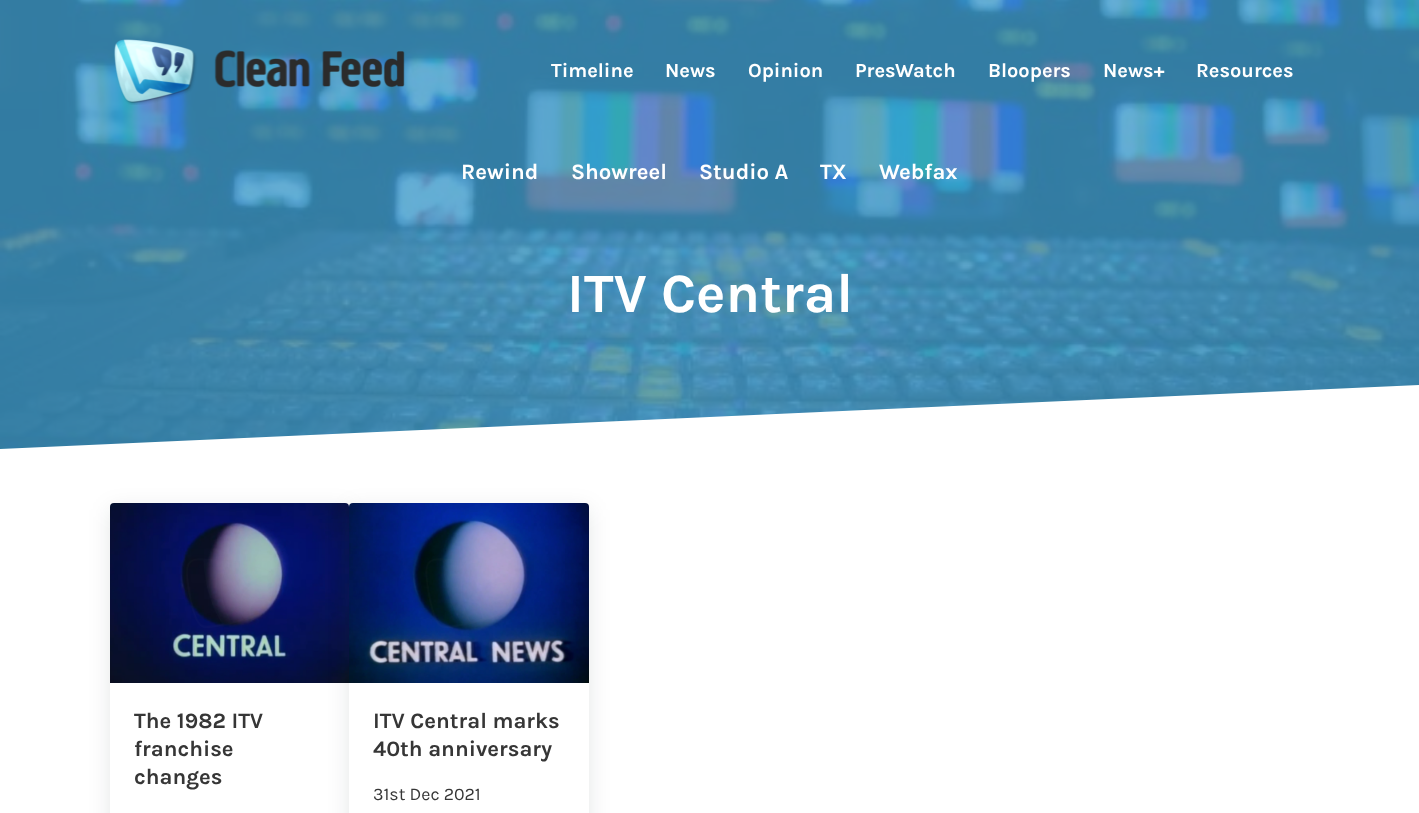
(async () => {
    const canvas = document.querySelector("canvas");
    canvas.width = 1419;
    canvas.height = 813;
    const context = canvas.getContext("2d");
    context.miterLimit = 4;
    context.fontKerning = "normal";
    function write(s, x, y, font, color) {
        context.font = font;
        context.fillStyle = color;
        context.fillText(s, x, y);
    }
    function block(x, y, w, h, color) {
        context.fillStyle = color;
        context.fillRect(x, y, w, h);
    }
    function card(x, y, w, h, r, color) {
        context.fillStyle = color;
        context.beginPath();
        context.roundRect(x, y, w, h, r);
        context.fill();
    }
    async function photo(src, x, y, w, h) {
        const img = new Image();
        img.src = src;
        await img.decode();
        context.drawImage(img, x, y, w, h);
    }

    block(0, 0, 1419, 813, "rgb(255, 255, 255)");
    await photo("media/2.png", 0, 0, 1419, 449);
    await photo("media/1.png", 114, 39, 291, 66);
    write("Timeline", 551, 77, "bold 20px Karla", "rgb(255, 255, 255)");
    write("News", 665, 77, "bold 20px Karla", "rgb(255, 255, 255)");
    write("Opinion", 748, 77, "bold 20px Karla", "rgb(255, 255, 255)");
    write("PresWatch", 855, 77, "bold 20px Karla", "rgb(255, 255, 255)");
    write("Bloopers", 988, 77, "bold 20px Karla", "rgb(255, 255, 255)");
    write("News+", 1103, 77, "bold 20px Karla", "rgb(255, 255, 255)");
    write("Resources", 1196, 77, "bold 20px Karla", "rgb(255, 255, 255)");
    write("Rewind", 461, 179, "bold 22.1px Karla", "rgb(255, 255, 255)");
    write("Showreel", 571, 179, "bold 22.1px Karla", "rgb(255, 255, 255)");
    write("Studio A", 699, 179, "bold 22.1px Karla", "rgb(255, 255, 255)");
    write("TX", 820, 179, "bold 22.1px Karla", "rgb(255, 255, 255)");
    write("Webfax", 879, 179, "bold 22.1px Karla", "rgb(255, 255, 255)");
    write("ITV Central", 567, 312, "bold 55.5px Karla", "rgb(255, 255, 255)");
    context.beginPath();
    context.moveTo(1419, 449);
    context.lineTo(0, 449);
    context.lineTo(1419, 385);
    context.closePath();
    context.fill();
    context.save();
    context.beginPath();
    context.moveTo(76, 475);
    context.lineTo(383, 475);
    context.lineTo(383, 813);
    context.lineTo(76, 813);
    context.closePath();
    context.moveTo(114, 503);
    context.lineTo(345, 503);
    context.bezierCurveTo(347, 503, 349, 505, 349, 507);
    context.lineTo(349, 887);
    context.bezierCurveTo(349, 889, 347, 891, 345, 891);
    context.lineTo(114, 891);
    context.bezierCurveTo(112, 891, 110, 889, 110, 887);
    context.lineTo(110, 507);
    context.bezierCurveTo(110, 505, 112, 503, 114, 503);
    context.closePath();
    context.clip("evenodd");
    context.fillStyle = "rgba(10, 20, 30, 0.1)";
    context.filter = "blur(11px)";
    context.beginPath();
    context.roundRect(110, 509, 239, 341, 4);
    context.fill();
    context.filter = "none";
    context.restore();
    await photo("media/3.png", 110, 503, 239, 180);
    write("The 1982 ITV", 134, 728, "bold 22.1px Karla", "rgb(54, 54, 54)");
    write("franchise", 134, 756, "bold 22.1px Karla", "rgb(54, 54, 54)");
    write("changes", 134, 784, "bold 22.1px Karla", "rgb(54, 54, 54)");
    context.fillStyle = "rgba(10, 20, 30, 0.1)";
    context.filter = "blur(11px)";
    context.beginPath();
    context.roundRect(349, 509, 240, 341, 4);
    context.fill();
    context.filter = "none";
    card(349, 503, 240, 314, 4, "rgb(255, 255, 255)");
    await photo("media/4.png", 349, 503, 240, 180);
    write("ITV Central marks", 373, 728, "bold 22.1px Karla", "rgb(54, 54, 54)");
    write("40th anniversary", 373, 756, "bold 22.1px Karla", "rgb(54, 54, 54)");
    write("31st Dec 2021", 373, 800, "17.75px Karla", "rgb(54, 54, 54)");
})();
